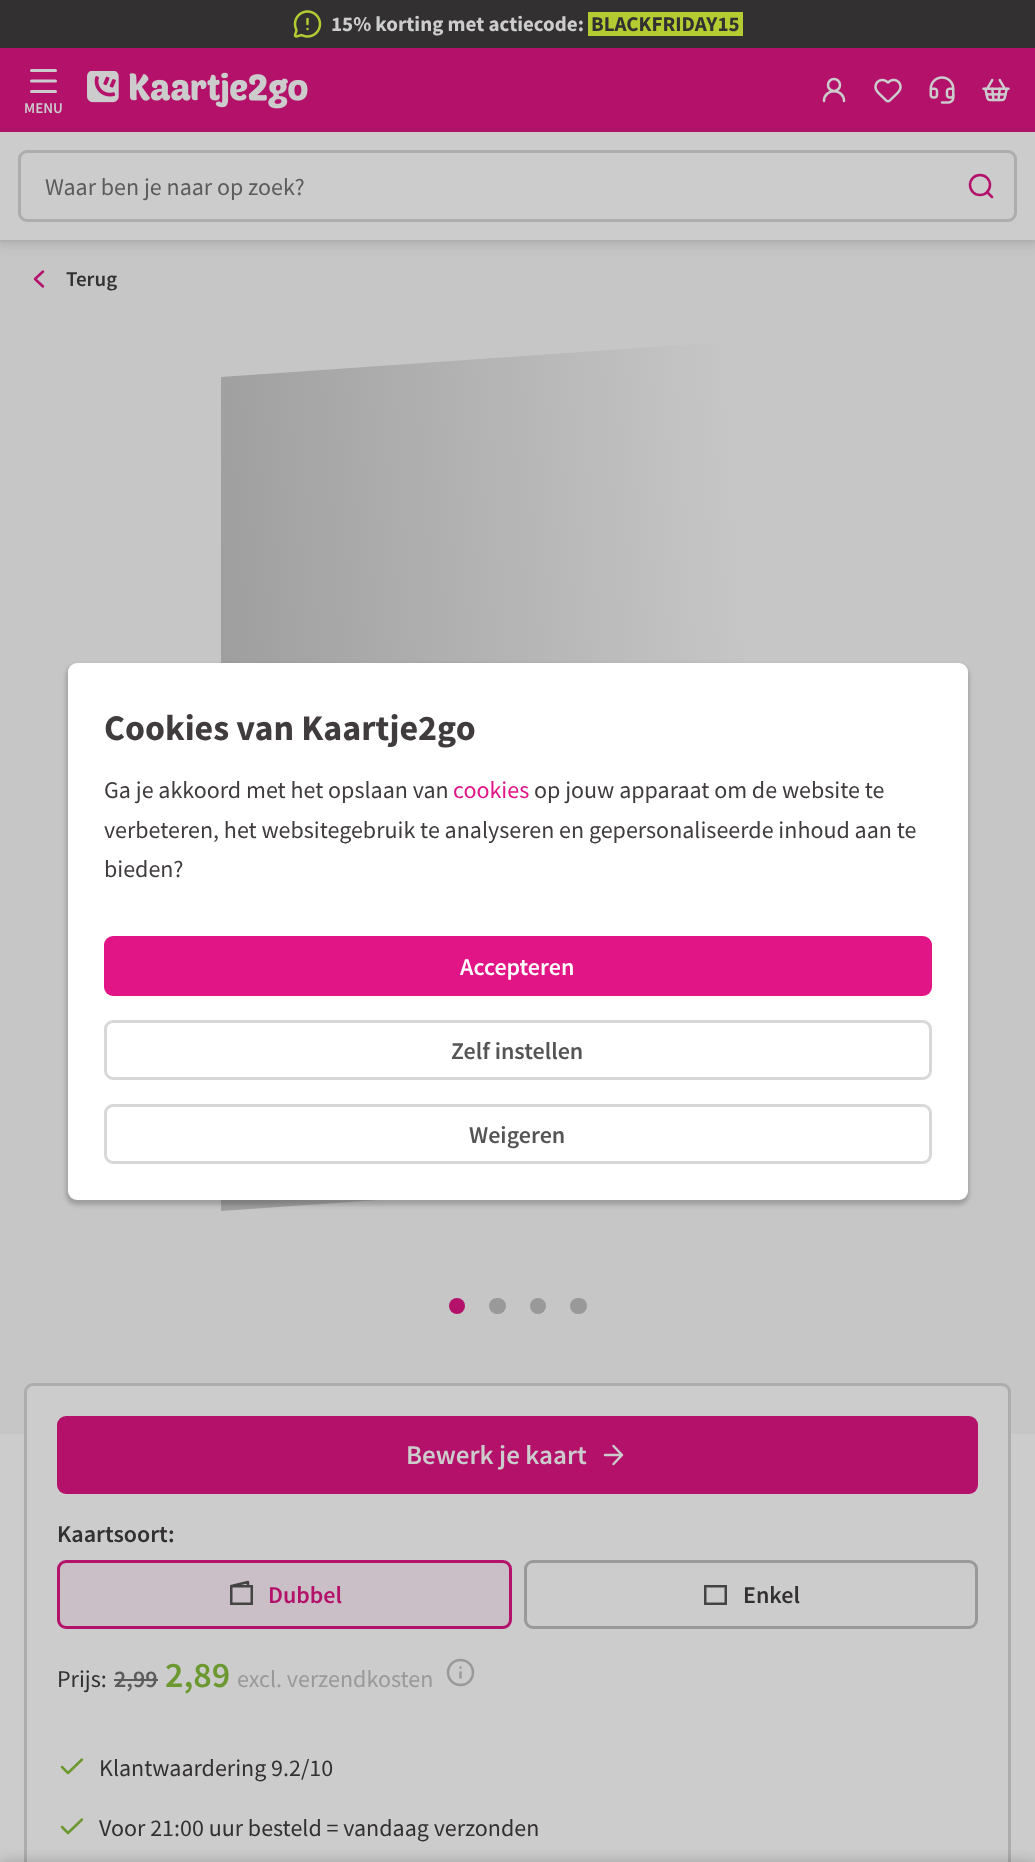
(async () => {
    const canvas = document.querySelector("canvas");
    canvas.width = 1035;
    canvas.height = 1862;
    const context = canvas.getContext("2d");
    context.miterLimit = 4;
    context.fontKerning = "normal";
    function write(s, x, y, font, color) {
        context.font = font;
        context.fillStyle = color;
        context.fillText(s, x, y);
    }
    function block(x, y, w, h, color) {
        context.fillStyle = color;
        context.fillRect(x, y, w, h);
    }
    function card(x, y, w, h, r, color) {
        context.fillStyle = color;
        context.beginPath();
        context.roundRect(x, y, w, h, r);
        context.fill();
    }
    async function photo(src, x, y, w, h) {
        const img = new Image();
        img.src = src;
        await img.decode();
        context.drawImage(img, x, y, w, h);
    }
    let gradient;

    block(0, 0, 1035, 1862, "rgb(204, 204, 204)");
    block(0, 0, 1035, 48, "rgb(51, 48, 50)");
    await photo("media/1.png", 293, 10, 29, 28);
    write("15% korting met actiecode:", 331, 31, "bold 21px Source Sans Pro", "rgb(204, 204, 204)");
    block(588, 12, 155, 24, "rgb(180, 204, 50)");
    write("BLACKFRIDAY15", 591, 31, "bold 21px Source Sans Pro", "rgb(51, 48, 50)");
    block(0, 48, 1035, 84, "rgb(180, 17, 107)");
    context.beginPath();
    context.arc(834, 85, 6, 0, Math.PI * 2);
    context.strokeStyle = "rgb(204, 204, 204)";
    context.lineWidth = 2.5;
    context.stroke();
    context.beginPath();
    context.moveTo(844, 101);
    context.bezierCurveTo(844, 88, 824, 88, 824, 101);
    context.lineCap = "round";
    context.lineJoin = "round";
    context.stroke();
    await photo("media/2.png", 874, 78, 28, 25);
    await photo("media/3.png", 929, 76, 26, 28);
    await photo("media/4.png", 982, 78, 28, 24);
    context.beginPath();
    context.moveTo(31.5, 70.5);
    context.lineTo(55.5, 70.5);
    context.moveTo(31.5, 81);
    context.lineTo(55.5, 81);
    context.moveTo(31.5, 91.5);
    context.lineTo(55.5, 91.5);
    context.lineWidth = 3;
    context.stroke();
    write("MENU", 24, 113, "600 15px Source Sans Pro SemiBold", "rgb(204, 204, 204)");
    await photo("media/5.png", 87, 71, 221, 38);
    block(0, 240, 1035, 1194, "rgb(198, 198, 198)");
    context.fillStyle = "rgba(79, 79, 79, 0.1)";
    context.filter = "blur(4.5px)";
    context.beginPath();
    context.rect(-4, 131, 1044, 117);
    context.fill();
    context.filter = "none";
    context.fillStyle = "rgba(53, 53, 53, 0.1)";
    context.filter = "blur(1.5px)";
    context.beginPath();
    context.rect(0, 134, 1035, 108);
    context.fill();
    context.filter = "none";
    block(0, 132, 1035, 108, "rgb(204, 204, 204)");
    context.beginPath();
    context.roundRect(19.5, 151.5, 996, 69, 7.5);
    context.strokeStyle = "rgb(173, 173, 173)";
    context.lineJoin = "miter";
    context.stroke();
    write("Waar ben je naar op zoek?", 45, 195, "24px Source Sans Pro", "rgb(92, 92, 92)");
    context.beginPath();
    context.moveTo(992, 197);
    context.lineTo(987, 192);
    context.strokeStyle = "rgb(180, 17, 107)";
    context.lineWidth = 2.5;
    context.lineJoin = "round";
    context.stroke();
    context.beginPath();
    context.arc(980, 185, 10, 0, Math.PI * 2);
    context.stroke();
    context.beginPath();
    context.moveTo(43, 286.5);
    context.lineTo(35, 279);
    context.lineTo(43, 271.5);
    context.stroke();
    write("Terug", 66, 286, "600 21px Source Sans Pro SemiBold", "rgb(51, 48, 50)");
    gradient = context.createLinearGradient(221, 794, 754, 757);
    gradient.addColorStop(0, "rgb(158, 158, 158)");
    gradient.addColorStop(1, "rgb(198, 198, 198)");
    context.fillStyle = gradient;
    context.beginPath();
    context.moveTo(221, 377);
    context.lineTo(754, 340);
    context.lineTo(754, 1174);
    context.lineTo(221, 1211);
    context.closePath();
    context.fill();
    context.fillStyle = "rgb(180, 17, 107)";
    context.beginPath();
    context.arc(457, 1306, 8, 0, Math.PI * 2);
    context.fill();
    card(489, 1298, 17, 16, 8, "rgb(153, 153, 153)");
    context.beginPath();
    context.arc(538, 1306, 8, 0, Math.PI * 2);
    context.fill();
    card(570, 1298, 17, 16, 8, "rgb(153, 153, 153)");
    context.fillStyle = "rgb(204, 204, 204)";
    context.beginPath();
    context.roundRect(25.5, 1384.5, 984, 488, 7.5);
    context.fill();
    context.strokeStyle = "rgb(173, 173, 173)";
    context.lineWidth = 3;
    context.lineJoin = "miter";
    context.stroke();
    card(57, 1416, 921, 78, 9, "rgb(180, 17, 107)");
    write("Bewerk je kaart", 406, 1464, "600 27px Source Sans Pro SemiBold", "rgb(204, 204, 204)");
    context.beginPath();
    context.moveTo(605, 1455);
    context.lineTo(622, 1455);
    context.moveTo(613.5, 1446);
    context.lineTo(622, 1455);
    context.lineTo(613.5, 1464);
    context.strokeStyle = "rgb(204, 204, 204)";
    context.lineWidth = 2.5;
    context.lineJoin = "round";
    context.stroke();
    write("Kaartsoort:", 57, 1542, "600 24px Source Sans Pro SemiBold", "rgb(51, 48, 50)");
    context.fillStyle = "rgb(202, 191, 198)";
    context.beginPath();
    context.roundRect(58.5, 1561.5, 452, 66, 7.5);
    context.fill();
    context.strokeStyle = "rgb(180, 17, 107)";
    context.lineWidth = 3;
    context.lineJoin = "miter";
    context.stroke();
    context.beginPath();
    context.moveTo(231.5, 1586);
    context.lineTo(248, 1582);
    context.lineTo(248, 1584.5);
    context.strokeStyle = "rgb(68, 68, 68)";
    context.lineWidth = 2.5;
    context.lineJoin = "round";
    context.stroke();
    context.lineJoin = "miter";
    context.strokeRect(231.25, 1586.25, 20.5, 17.5);
    write("Dubbel", 268, 1603, "600 24px Source Sans Pro SemiBold", "rgb(180, 17, 107)");
    context.beginPath();
    context.roundRect(525.5, 1561.5, 451, 66, 7.5);
    context.strokeStyle = "rgb(153, 153, 153)";
    context.lineWidth = 3;
    context.stroke();
    context.strokeStyle = "rgb(68, 68, 68)";
    context.lineWidth = 2.5;
    context.strokeRect(705.25, 1586.25, 20.5, 17.5);
    write("Enkel", 743, 1603, "600 24px Source Sans Pro SemiBold", "rgb(51, 48, 50)");
    write("Prijs:", 57, 1687, "24px Source Sans Pro", "rgb(51, 48, 50)");
    write("2,99", 114, 1687, "600 24px Source Sans Pro SemiBold", "rgb(92, 92, 92)");
    block(114, 1679, 44, 2, "rgb(92, 92, 92)");
    write("2,89", 165, 1687, "600 36px Source Sans Pro SemiBold", "rgb(108, 152, 48)");
    write("excl. verzendkosten", 237, 1687, "24px Source Sans Pro", "rgb(153, 153, 153)");
    context.beginPath();
    context.arc(460.5, 1672.5, 12.5, 0, Math.PI * 2);
    context.strokeStyle = "rgb(153, 153, 153)";
    context.stroke();
    context.beginPath();
    context.moveTo(460.5, 1677.5);
    context.lineTo(460.5, 1672.5);
    context.moveTo(460.5, 1667.5);
    context.lineTo(460.5, 1667.5);
    context.lineJoin = "round";
    context.stroke();
    context.beginPath();
    context.moveTo(82, 1759.5);
    context.lineTo(68, 1773);
    context.lineTo(62, 1767);
    context.strokeStyle = "rgb(108, 152, 48)";
    context.stroke();
    write("Klantwaardering 9.2/10", 99, 1776, "24px Source Sans Pro", "rgb(51, 48, 50)");
    context.beginPath();
    context.moveTo(82, 1819.5);
    context.lineTo(68, 1833);
    context.lineTo(62, 1827);
    context.stroke();
    write("Voor 21:00 uur besteld = vandaag verzonden", 99, 1836, "24px Source Sans Pro", "rgb(51, 48, 50)");
    context.fillStyle = "rgba(0, 0, 0, 0.25)";
    context.filter = "blur(7.5px)";
    context.beginPath();
    context.rect(0, 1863, 1035, 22);
    context.fill();
    context.filter = "none";
    context.fillStyle = "rgba(0, 0, 0, 0.2)";
    context.filter = "blur(2px)";
    context.beginPath();
    context.roundRect(66, 665, 903, 540, 11);
    context.fill();
    context.filter = "none";
    card(68, 663, 900, 537, 9, "rgb(255, 255, 255)");
    write("Cookies van Kaartje2go", 104, 740, "bold 36px Source Sans Pro", "rgb(64, 60, 62)");
    write("Ga je akkoord met het opslaan van", 104, 798, "24px Source Sans Pro", "rgb(64, 60, 62)");
    write("cookies", 453, 798, "24px Source Sans Pro", "rgb(225, 21, 134)");
    write("op jouw apparaat om de website te", 534, 798, "24px Source Sans Pro", "rgb(64, 60, 62)");
    write("verbeteren, het websitegebruik te analyseren en gepersonaliseerde inhoud aan te", 104, 838, "24px Source Sans Pro", "rgb(64, 60, 62)");
    write("bieden?", 104, 877, "24px Source Sans Pro", "rgb(64, 60, 62)");
    card(104, 936, 828, 60, 9, "rgb(225, 21, 134)");
    write("Accepteren", 460, 975, "600 24px Source Sans Pro SemiBold", "rgb(255, 255, 255)");
    context.beginPath();
    context.roundRect(105.5, 1021.5, 825, 57, 7.5);
    context.strokeStyle = "rgb(216, 216, 216)";
    context.lineWidth = 3;
    context.lineJoin = "miter";
    context.stroke();
    write("Zelf instellen", 451, 1059, "600 24px Source Sans Pro SemiBold", "rgb(85, 85, 85)");
    context.beginPath();
    context.roundRect(105.5, 1105.5, 825, 57, 7.5);
    context.stroke();
    write("Weigeren", 469, 1143, "600 24px Source Sans Pro SemiBold", "rgb(85, 85, 85)");
})();
